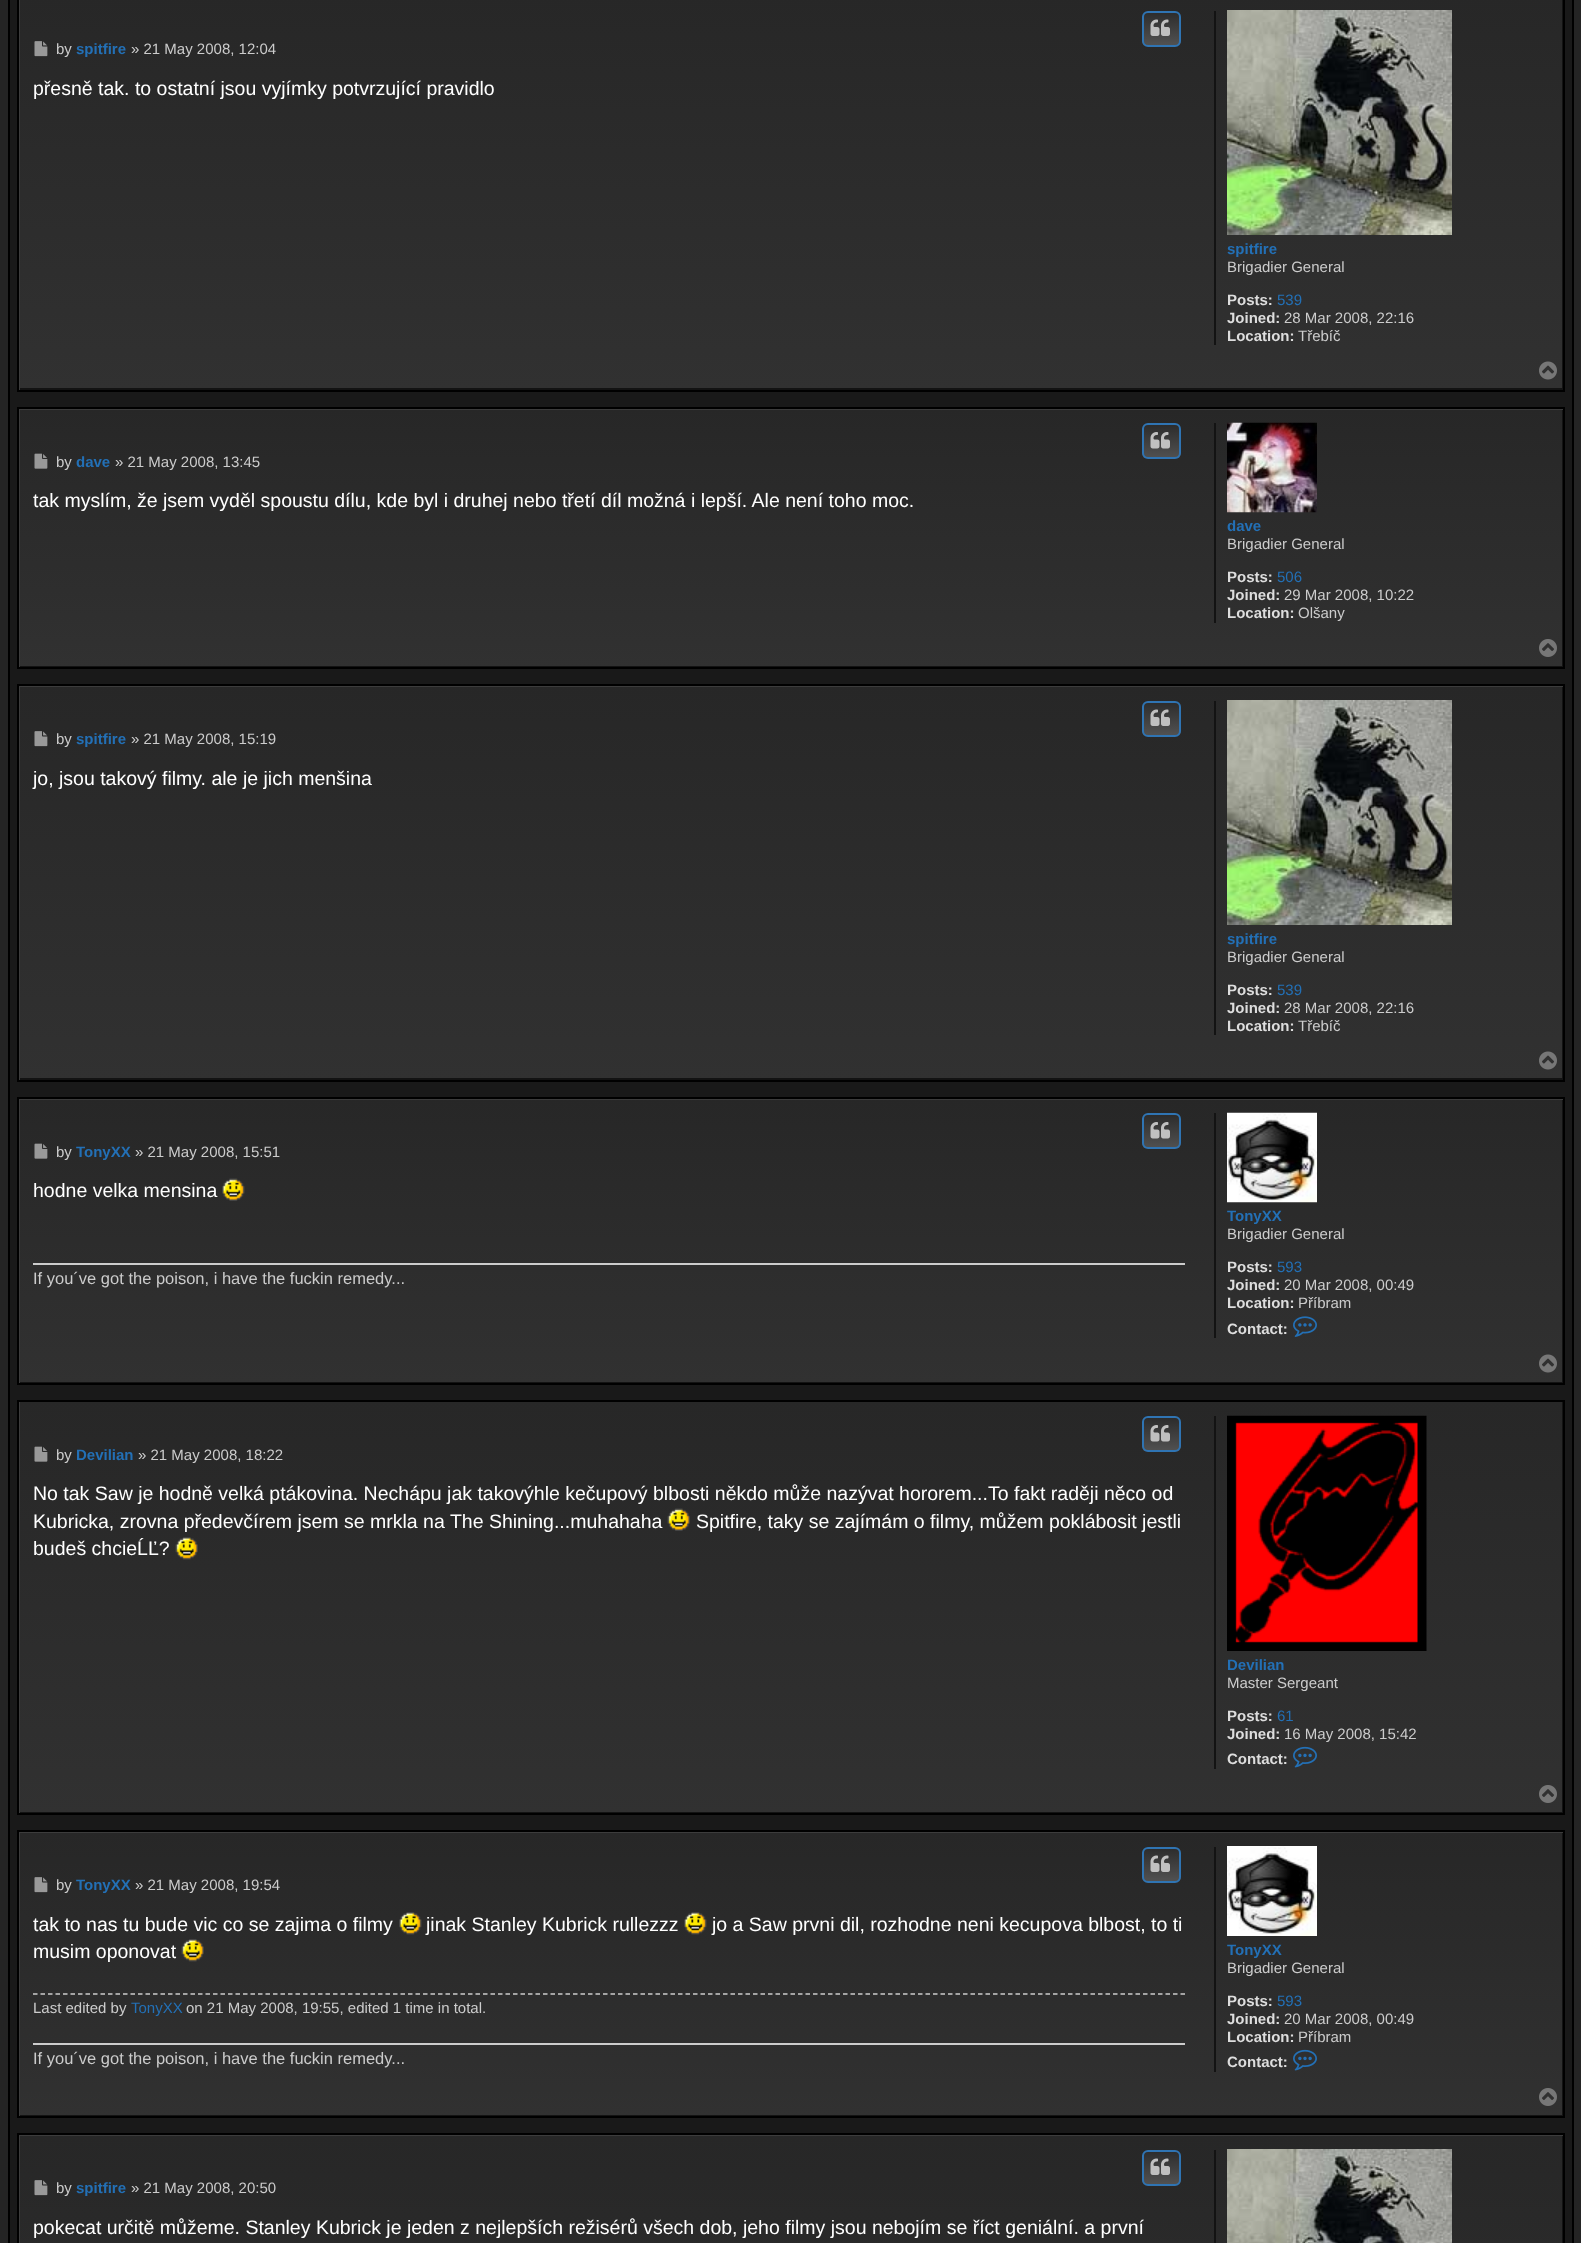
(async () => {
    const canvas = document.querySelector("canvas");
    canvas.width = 1581;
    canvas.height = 2243;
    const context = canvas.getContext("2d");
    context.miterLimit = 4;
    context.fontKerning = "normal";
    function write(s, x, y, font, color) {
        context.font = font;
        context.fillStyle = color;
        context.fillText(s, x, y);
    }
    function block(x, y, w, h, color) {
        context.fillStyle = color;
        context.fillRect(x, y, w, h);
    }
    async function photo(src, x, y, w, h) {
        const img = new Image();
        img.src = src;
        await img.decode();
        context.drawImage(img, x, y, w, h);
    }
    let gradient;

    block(0, 0, 1581, 2243, "rgb(36, 36, 36)");
    block(10, 0, 1562, 2243, "rgb(25, 25, 25)");
    block(1572, 0, 2, 2243, "rgb(0, 0, 0)");
    block(8, 0, 2, 2243, "rgb(0, 0, 0)");
    gradient = context.createLinearGradient(791, -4.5, 791, 390);
    gradient.addColorStop(0, "rgb(39, 39, 39)");
    gradient.addColorStop(1, "rgb(49, 49, 49)");
    context.fillStyle = gradient;
    context.fillRect(20, 0, 1542, 388);
    context.save();
    context.beginPath();
    context.rect(18, 0, 1545, 390);
    context.clip();
    context.fillStyle = "rgb(19, 19, 19)";
    context.beginPath();
    context.moveTo(-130, -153);
    context.lineTo(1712, -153);
    context.lineTo(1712, 538);
    context.lineTo(-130, 538);
    context.closePath();
    context.moveTo(16, -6);
    context.lineTo(1562, -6);
    context.lineTo(1562, 388);
    context.lineTo(16, 388);
    context.closePath();
    context.fill("evenodd");
    context.fillStyle = "rgb(60, 60, 60)";
    context.beginPath();
    context.moveTo(-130, -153);
    context.lineTo(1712, -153);
    context.lineTo(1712, 538);
    context.lineTo(-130, 538);
    context.closePath();
    context.moveTo(20, -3);
    context.lineTo(1564, -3);
    context.lineTo(1564, 392);
    context.lineTo(20, 392);
    context.closePath();
    context.fill("evenodd");
    context.restore();
    context.strokeStyle = "rgb(0, 0, 0)";
    context.lineWidth = 2;
    context.strokeRect(18, -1, 1546, 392);
    context.save();
    context.beginPath();
    context.roundRect(1142, 11, 39, 36, 6);
    context.clip();
    gradient = context.createLinearGradient(1161, 12, 1161, 45);
    gradient.addColorStop(0, "rgb(44, 44, 44)");
    gradient.addColorStop(1, "rgb(81, 81, 81)");
    context.fillStyle = gradient;
    context.fillRect(1142, 12, 39, 33);
    context.restore();
    context.beginPath();
    context.roundRect(1143, 12, 37, 34, 5);
    context.strokeStyle = "rgb(47, 116, 179)";
    context.stroke();
    await photo("media/1.png", 1150, 19, 20, 17);
    await photo("media/2.png", 34, 41, 14, 16);
    write("by", 56, 54, "15px Liberation Sans", "rgb(204, 204, 204)");
    write("spitfire", 76, 54, "bold 15px Liberation Sans", "rgb(35, 112, 182)");
    write("» 21 May 2008, 12:04", 131, 54, "15px Liberation Sans", "rgb(204, 204, 204)");
    write("přesně tak. to ostatní jsou vyjímky potvrzující pravidlo", 33, 95, "19.5px Liberation Sans", "rgb(255, 255, 255)");
    block(1214, 11, 2, 334, "rgb(19, 19, 19)");
    await photo("media/3.png", 1227, 10, 225, 225);
    write("spitfire", 1227, 254, "bold 15px Liberation Sans", "rgb(35, 112, 182)");
    write("Brigadier General", 1227, 272, "15px Liberation Sans", "rgb(204, 204, 204)");
    write("Posts:", 1227, 305, "bold 15px Liberation Sans", "rgb(221, 221, 221)");
    write("539", 1277, 305, "15px Liberation Sans", "rgb(35, 112, 182)");
    write("Joined:", 1227, 323, "bold 15px Liberation Sans", "rgb(221, 221, 221)");
    write("28 Mar 2008, 22:16", 1284, 323, "15px Liberation Sans", "rgb(204, 204, 204)");
    write("Location:", 1227, 341, "bold 15px Liberation Sans", "rgb(221, 221, 221)");
    write("Třebíč", 1298, 341, "15px Liberation Sans", "rgb(204, 204, 204)");
    await photo("media/4.png", 1539, 361, 18, 19);
    gradient = context.createLinearGradient(791, 408, 791, 668);
    gradient.addColorStop(0, "rgb(39, 39, 39)");
    gradient.addColorStop(1, "rgb(49, 49, 49)");
    context.fillStyle = gradient;
    context.fillRect(20, 410, 1542, 256);
    context.save();
    context.beginPath();
    context.rect(18, 408, 1545, 260);
    context.clip();
    context.fillStyle = "rgb(19, 19, 19)";
    context.beginPath();
    context.moveTo(-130, 260);
    context.lineTo(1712, 260);
    context.lineTo(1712, 816);
    context.lineTo(-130, 816);
    context.closePath();
    context.moveTo(16, 406);
    context.lineTo(1562, 406);
    context.lineTo(1562, 666);
    context.lineTo(16, 666);
    context.closePath();
    context.fill("evenodd");
    context.fillStyle = "rgb(60, 60, 60)";
    context.beginPath();
    context.moveTo(-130, 260);
    context.lineTo(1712, 260);
    context.lineTo(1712, 816);
    context.lineTo(-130, 816);
    context.closePath();
    context.moveTo(20, 410);
    context.lineTo(1564, 410);
    context.lineTo(1564, 669);
    context.lineTo(20, 669);
    context.closePath();
    context.fill("evenodd");
    context.restore();
    context.strokeStyle = "rgb(0, 0, 0)";
    context.strokeRect(18, 408, 1546, 260);
    context.save();
    context.beginPath();
    context.roundRect(1142, 423, 39, 36, 6);
    context.clip();
    gradient = context.createLinearGradient(1161, 425, 1161, 458);
    gradient.addColorStop(0, "rgb(44, 44, 44)");
    gradient.addColorStop(1, "rgb(81, 81, 81)");
    context.fillStyle = gradient;
    context.fillRect(1142, 425, 39, 33);
    context.restore();
    context.beginPath();
    context.roundRect(1143, 424, 37, 34, 5);
    context.strokeStyle = "rgb(47, 116, 179)";
    context.stroke();
    await photo("media/5.png", 1150, 432, 20, 17);
    await photo("media/6.png", 34, 453, 14, 16);
    write("by", 56, 467, "15px Liberation Sans", "rgb(204, 204, 204)");
    write("dave", 76, 467, "bold 15px Liberation Sans", "rgb(35, 112, 182)");
    write("» 21 May 2008, 13:45", 115, 467, "15px Liberation Sans", "rgb(204, 204, 204)");
    write("tak myslím, že jsem vyděl spoustu dílu, kde byl i druhej nebo třetí díl možná i lepší. Ale není toho moc.", 33, 507, "19.5px Liberation Sans", "rgb(255, 255, 255)");
    block(1214, 423, 2, 200, "rgb(19, 19, 19)");
    await photo("media/7.png", 1227, 422, 90, 91);
    write("dave", 1227, 531, "bold 15px Liberation Sans", "rgb(35, 112, 182)");
    write("Brigadier General", 1227, 549, "15px Liberation Sans", "rgb(204, 204, 204)");
    write("Posts:", 1227, 582, "bold 15px Liberation Sans", "rgb(221, 221, 221)");
    write("506", 1277, 582, "15px Liberation Sans", "rgb(35, 112, 182)");
    write("Joined:", 1227, 600, "bold 15px Liberation Sans", "rgb(221, 221, 221)");
    write("29 Mar 2008, 10:22", 1284, 600, "15px Liberation Sans", "rgb(204, 204, 204)");
    write("Location:", 1227, 618, "bold 15px Liberation Sans", "rgb(221, 221, 221)");
    write("Olšany", 1298, 618, "15px Liberation Sans", "rgb(204, 204, 204)");
    await photo("media/8.png", 1539, 639, 18, 18);
    gradient = context.createLinearGradient(791, 685, 791, 1080);
    gradient.addColorStop(0, "rgb(39, 39, 39)");
    gradient.addColorStop(1, "rgb(49, 49, 49)");
    context.fillStyle = gradient;
    context.fillRect(20, 687, 1542, 391);
    context.save();
    context.beginPath();
    context.rect(18, 686, 1545, 394);
    context.clip();
    context.fillStyle = "rgb(19, 19, 19)";
    context.beginPath();
    context.moveTo(-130, 537);
    context.lineTo(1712, 537);
    context.lineTo(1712, 1228);
    context.lineTo(-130, 1228);
    context.closePath();
    context.moveTo(16, 684);
    context.lineTo(1562, 684);
    context.lineTo(1562, 1078);
    context.lineTo(16, 1078);
    context.closePath();
    context.fill("evenodd");
    context.fillStyle = "rgb(60, 60, 60)";
    context.beginPath();
    context.moveTo(-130, 537);
    context.lineTo(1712, 537);
    context.lineTo(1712, 1228);
    context.lineTo(-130, 1228);
    context.closePath();
    context.moveTo(20, 687);
    context.lineTo(1564, 687);
    context.lineTo(1564, 1082);
    context.lineTo(20, 1082);
    context.closePath();
    context.fill("evenodd");
    context.restore();
    context.strokeStyle = "rgb(0, 0, 0)";
    context.strokeRect(18, 685, 1546, 396);
    context.save();
    context.beginPath();
    context.roundRect(1142, 701, 39, 36, 6);
    context.clip();
    gradient = context.createLinearGradient(1161, 702, 1161, 735);
    gradient.addColorStop(0, "rgb(44, 44, 44)");
    gradient.addColorStop(1, "rgb(81, 81, 81)");
    context.fillStyle = gradient;
    context.fillRect(1142, 702, 39, 33);
    context.restore();
    context.beginPath();
    context.roundRect(1143, 702, 37, 34, 5);
    context.strokeStyle = "rgb(47, 116, 179)";
    context.stroke();
    await photo("media/1.png", 1150, 709, 20, 17);
    await photo("media/9.png", 34, 731, 14, 16);
    write("by", 56, 744, "15px Liberation Sans", "rgb(204, 204, 204)");
    write("spitfire", 76, 744, "bold 15px Liberation Sans", "rgb(35, 112, 182)");
    write("» 21 May 2008, 15:19", 131, 744, "15px Liberation Sans", "rgb(204, 204, 204)");
    write("jo, jsou takový filmy. ale je jich menšina", 33, 785, "19.5px Liberation Sans", "rgb(255, 255, 255)");
    block(1214, 701, 2, 334, "rgb(19, 19, 19)");
    await photo("media/3.png", 1227, 700, 225, 225);
    write("spitfire", 1227, 944, "bold 15px Liberation Sans", "rgb(35, 112, 182)");
    write("Brigadier General", 1227, 962, "15px Liberation Sans", "rgb(204, 204, 204)");
    write("Posts:", 1227, 995, "bold 15px Liberation Sans", "rgb(221, 221, 221)");
    write("539", 1277, 995, "15px Liberation Sans", "rgb(35, 112, 182)");
    write("Joined:", 1227, 1013, "bold 15px Liberation Sans", "rgb(221, 221, 221)");
    write("28 Mar 2008, 22:16", 1284, 1013, "15px Liberation Sans", "rgb(204, 204, 204)");
    write("Location:", 1227, 1031, "bold 15px Liberation Sans", "rgb(221, 221, 221)");
    write("Třebíč", 1298, 1031, "15px Liberation Sans", "rgb(204, 204, 204)");
    await photo("media/4.png", 1539, 1051, 18, 19);
    gradient = context.createLinearGradient(791, 1098, 791, 1383);
    gradient.addColorStop(0, "rgb(39, 39, 39)");
    gradient.addColorStop(1, "rgb(49, 49, 49)");
    context.fillStyle = gradient;
    context.fillRect(20, 1100, 1542, 282);
    context.save();
    context.beginPath();
    context.rect(18, 1098, 1545, 285);
    context.clip();
    context.fillStyle = "rgb(19, 19, 19)";
    context.beginPath();
    context.moveTo(-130, 950);
    context.lineTo(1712, 950);
    context.lineTo(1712, 1532);
    context.lineTo(-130, 1532);
    context.closePath();
    context.moveTo(16, 1096);
    context.lineTo(1562, 1096);
    context.lineTo(1562, 1382);
    context.lineTo(16, 1382);
    context.closePath();
    context.fill("evenodd");
    context.fillStyle = "rgb(60, 60, 60)";
    context.beginPath();
    context.moveTo(-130, 950);
    context.lineTo(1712, 950);
    context.lineTo(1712, 1532);
    context.lineTo(-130, 1532);
    context.closePath();
    context.moveTo(20, 1100);
    context.lineTo(1564, 1100);
    context.lineTo(1564, 1384);
    context.lineTo(20, 1384);
    context.closePath();
    context.fill("evenodd");
    context.restore();
    context.strokeStyle = "rgb(0, 0, 0)";
    context.strokeRect(18, 1098, 1546, 286);
    context.save();
    context.beginPath();
    context.roundRect(1142, 1113, 39, 36, 6);
    context.clip();
    gradient = context.createLinearGradient(1161, 1115, 1161, 1148);
    gradient.addColorStop(0, "rgb(44, 44, 44)");
    gradient.addColorStop(1, "rgb(81, 81, 81)");
    context.fillStyle = gradient;
    context.fillRect(1142, 1115, 39, 33);
    context.restore();
    context.beginPath();
    context.roundRect(1143, 1114, 37, 34, 5);
    context.strokeStyle = "rgb(47, 116, 179)";
    context.stroke();
    await photo("media/5.png", 1150, 1122, 20, 17);
    await photo("media/6.png", 34, 1143, 14, 16);
    write("by", 56, 1157, "15px Liberation Sans", "rgb(204, 204, 204)");
    write("TonyXX", 76, 1157, "bold 15px Liberation Sans", "rgb(35, 112, 182)");
    write("» 21 May 2008, 15:51", 135, 1157, "15px Liberation Sans", "rgb(204, 204, 204)");
    write("hodne velka mensina", 33, 1197, "19.5px Liberation Sans", "rgb(255, 255, 255)");
    await photo("media/10.png", 222, 1178, 23, 23);
    block(33, 1263, 1152, 2, "rgb(204, 204, 204)");
    write("If you´ve got the poison, i have the fuckin remedy...", 33, 1284, "16.5px Liberation Sans", "rgb(204, 204, 204)");
    block(1214, 1113, 2, 225, "rgb(19, 19, 19)");
    await photo("media/11.png", 1227, 1112, 90, 91);
    write("TonyXX", 1227, 1221, "bold 15px Liberation Sans", "rgb(35, 112, 182)");
    write("Brigadier General", 1227, 1239, "15px Liberation Sans", "rgb(204, 204, 204)");
    write("Posts:", 1227, 1272, "bold 15px Liberation Sans", "rgb(221, 221, 221)");
    write("593", 1277, 1272, "15px Liberation Sans", "rgb(35, 112, 182)");
    write("Joined:", 1227, 1290, "bold 15px Liberation Sans", "rgb(221, 221, 221)");
    write("20 Mar 2008, 00:49", 1284, 1290, "15px Liberation Sans", "rgb(204, 204, 204)");
    write("Location:", 1227, 1308, "bold 15px Liberation Sans", "rgb(221, 221, 221)");
    write("Příbram", 1298, 1308, "15px Liberation Sans", "rgb(204, 204, 204)");
    write("Contact:", 1227, 1334, "bold 15px Liberation Sans", "rgb(221, 221, 221)");
    await photo("media/12.png", 1293, 1316, 24, 21);
    await photo("media/13.png", 1539, 1354, 18, 19);
    gradient = context.createLinearGradient(791, 1401, 791, 1814);
    gradient.addColorStop(0, "rgb(39, 39, 39)");
    gradient.addColorStop(1, "rgb(49, 49, 49)");
    context.fillStyle = gradient;
    context.fillRect(20, 1402, 1542, 410);
    context.save();
    context.beginPath();
    context.rect(18, 1401, 1545, 413);
    context.clip();
    context.fillStyle = "rgb(19, 19, 19)";
    context.beginPath();
    context.moveTo(-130, 1252);
    context.lineTo(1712, 1252);
    context.lineTo(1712, 1962);
    context.lineTo(-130, 1962);
    context.closePath();
    context.moveTo(16, 1400);
    context.lineTo(1562, 1400);
    context.lineTo(1562, 1812);
    context.lineTo(16, 1812);
    context.closePath();
    context.fill("evenodd");
    context.fillStyle = "rgb(60, 60, 60)";
    context.beginPath();
    context.moveTo(-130, 1252);
    context.lineTo(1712, 1252);
    context.lineTo(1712, 1962);
    context.lineTo(-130, 1962);
    context.closePath();
    context.moveTo(20, 1402);
    context.lineTo(1564, 1402);
    context.lineTo(1564, 1815);
    context.lineTo(20, 1815);
    context.closePath();
    context.fill("evenodd");
    context.restore();
    context.strokeStyle = "rgb(0, 0, 0)";
    context.strokeRect(18, 1401, 1546, 413);
    context.save();
    context.beginPath();
    context.roundRect(1142, 1416, 39, 36, 6);
    context.clip();
    gradient = context.createLinearGradient(1161, 1418, 1161, 1451);
    gradient.addColorStop(0, "rgb(44, 44, 44)");
    gradient.addColorStop(1, "rgb(81, 81, 81)");
    context.fillStyle = gradient;
    context.fillRect(1142, 1418, 39, 33);
    context.restore();
    context.beginPath();
    context.roundRect(1143, 1417, 37, 34, 5);
    context.strokeStyle = "rgb(47, 116, 179)";
    context.stroke();
    await photo("media/5.png", 1150, 1425, 20, 17);
    await photo("media/14.png", 34, 1446, 14, 16);
    write("by", 56, 1460, "15px Liberation Sans", "rgb(204, 204, 204)");
    write("Devilian", 76, 1460, "bold 15px Liberation Sans", "rgb(35, 112, 182)");
    write("» 21 May 2008, 18:22", 138, 1460, "15px Liberation Sans", "rgb(204, 204, 204)");
    write("No tak Saw je hodně velká ptákovina. Nechápu jak takovýhle kečupový blbosti někdo může nazývat hororem...To fakt raději něco od", 33, 1500, "19.5px Liberation Sans", "rgb(255, 255, 255)");
    write("Kubricka, zrovna předevčírem jsem se mrkla na The Shining...muhahaha", 33, 1528, "19.5px Liberation Sans", "rgb(255, 255, 255)");
    await photo("media/15.png", 667, 1508, 23, 23);
    write("Spitfire, taky se zajímám o filmy, můžem poklábosit jestli", 696, 1528, "19.5px Liberation Sans", "rgb(255, 255, 255)");
    write("budeš chcieĹĽ?", 33, 1555, "19.5px Liberation Sans", "rgb(255, 255, 255)");
    await photo("media/16.png", 175, 1537, 23, 23);
    block(1214, 1416, 2, 353, "rgb(19, 19, 19)");
    await photo("media/17.png", 1227, 1415, 200, 236);
    write("Devilian", 1227, 1670, "bold 15px Liberation Sans", "rgb(35, 112, 182)");
    write("Master Sergeant", 1227, 1688, "15px Liberation Sans", "rgb(204, 204, 204)");
    write("Posts:", 1227, 1721, "bold 15px Liberation Sans", "rgb(221, 221, 221)");
    write("61", 1277, 1721, "15px Liberation Sans", "rgb(35, 112, 182)");
    write("Joined:", 1227, 1739, "bold 15px Liberation Sans", "rgb(221, 221, 221)");
    write("16 May 2008, 15:42", 1284, 1739, "15px Liberation Sans", "rgb(204, 204, 204)");
    write("Contact:", 1227, 1764, "bold 15px Liberation Sans", "rgb(221, 221, 221)");
    await photo("media/18.png", 1293, 1746, 24, 22);
    await photo("media/19.png", 1539, 1785, 18, 18);
    gradient = context.createLinearGradient(791, 1832, 791, 2117);
    gradient.addColorStop(0, "rgb(39, 39, 39)");
    gradient.addColorStop(1, "rgb(49, 49, 49)");
    context.fillStyle = gradient;
    context.fillRect(20, 1833, 1542, 282);
    context.save();
    context.beginPath();
    context.rect(18, 1832, 1545, 285);
    context.clip();
    context.fillStyle = "rgb(19, 19, 19)";
    context.beginPath();
    context.moveTo(-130, 1683);
    context.lineTo(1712, 1683);
    context.lineTo(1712, 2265);
    context.lineTo(-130, 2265);
    context.closePath();
    context.moveTo(16, 1830);
    context.lineTo(1562, 1830);
    context.lineTo(1562, 2115);
    context.lineTo(16, 2115);
    context.closePath();
    context.fill("evenodd");
    context.fillStyle = "rgb(60, 60, 60)";
    context.beginPath();
    context.moveTo(-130, 1683);
    context.lineTo(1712, 1683);
    context.lineTo(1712, 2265);
    context.lineTo(-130, 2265);
    context.closePath();
    context.moveTo(20, 1833);
    context.lineTo(1564, 1833);
    context.lineTo(1564, 2118);
    context.lineTo(20, 2118);
    context.closePath();
    context.fill("evenodd");
    context.restore();
    context.strokeStyle = "rgb(0, 0, 0)";
    context.strokeRect(18, 1831, 1546, 286);
    context.save();
    context.beginPath();
    context.roundRect(1142, 1847, 39, 36, 6);
    context.clip();
    gradient = context.createLinearGradient(1161, 1848, 1161, 1881);
    gradient.addColorStop(0, "rgb(44, 44, 44)");
    gradient.addColorStop(1, "rgb(81, 81, 81)");
    context.fillStyle = gradient;
    context.fillRect(1142, 1848, 39, 33);
    context.restore();
    context.beginPath();
    context.roundRect(1143, 1848, 37, 34, 5);
    context.strokeStyle = "rgb(47, 116, 179)";
    context.stroke();
    await photo("media/1.png", 1150, 1855, 20, 17);
    await photo("media/20.png", 34, 1877, 14, 16);
    write("by", 56, 1890, "15px Liberation Sans", "rgb(204, 204, 204)");
    write("TonyXX", 76, 1890, "bold 15px Liberation Sans", "rgb(35, 112, 182)");
    write("» 21 May 2008, 19:54", 135, 1890, "15px Liberation Sans", "rgb(204, 204, 204)");
    write("tak to nas tu bude vic co se zajima o filmy", 33, 1931, "19.5px Liberation Sans", "rgb(255, 255, 255)");
    await photo("media/21.png", 399, 1912, 23, 23);
    write("jinak Stanley Kubrick rullezzz", 426, 1931, "19.5px Liberation Sans", "rgb(255, 255, 255)");
    await photo("media/22.png", 684, 1912, 23, 23);
    write("jo a Saw prvni dil, rozhodne neni kecupova blbost, to ti", 712, 1931, "19.5px Liberation Sans", "rgb(255, 255, 255)");
    write("musim oponovat", 33, 1958, "19.5px Liberation Sans", "rgb(255, 255, 255)");
    await photo("media/23.png", 181, 1939, 23, 23);
    context.beginPath();
    context.moveTo(33, 1994);
    context.lineTo(1185, 1994);
    context.strokeStyle = "rgb(204, 204, 204)";
    context.lineWidth = 1.5;
    context.setLineDash([4.5, 3]);
    context.stroke();
    write("Last edited by", 33, 2013, "15px Liberation Sans", "rgb(204, 204, 204)");
    write("TonyXX", 131, 2013, "15px Liberation Sans", "rgb(35, 112, 182)");
    write("on 21 May 2008, 19:55, edited 1 time in total.", 186, 2013, "15px Liberation Sans", "rgb(204, 204, 204)");
    block(33, 2043, 1152, 2, "rgb(204, 204, 204)");
    write("If you´ve got the poison, i have the fuckin remedy...", 33, 2064, "16.5px Liberation Sans", "rgb(204, 204, 204)");
    block(1214, 1847, 2, 225, "rgb(19, 19, 19)");
    await photo("media/24.png", 1227, 1846, 90, 90);
    write("TonyXX", 1227, 1955, "bold 15px Liberation Sans", "rgb(35, 112, 182)");
    write("Brigadier General", 1227, 1973, "15px Liberation Sans", "rgb(204, 204, 204)");
    write("Posts:", 1227, 2006, "bold 15px Liberation Sans", "rgb(221, 221, 221)");
    write("593", 1277, 2006, "15px Liberation Sans", "rgb(35, 112, 182)");
    write("Joined:", 1227, 2024, "bold 15px Liberation Sans", "rgb(221, 221, 221)");
    write("20 Mar 2008, 00:49", 1284, 2024, "15px Liberation Sans", "rgb(204, 204, 204)");
    write("Location:", 1227, 2042, "bold 15px Liberation Sans", "rgb(221, 221, 221)");
    write("Příbram", 1298, 2042, "15px Liberation Sans", "rgb(204, 204, 204)");
    write("Contact:", 1227, 2067, "bold 15px Liberation Sans", "rgb(221, 221, 221)");
    await photo("media/25.png", 1293, 2049, 24, 22);
    await photo("media/26.png", 1539, 2088, 18, 18);
    gradient = context.createLinearGradient(791, 2135, 791, 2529);
    gradient.addColorStop(0, "rgb(39, 39, 39)");
    gradient.addColorStop(1, "rgb(49, 49, 49)");
    context.fillStyle = gradient;
    context.fillRect(20, 2136, 1542, 107);
    context.save();
    context.beginPath();
    context.rect(18, 2135, 1545, 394);
    context.clip();
    context.fillStyle = "rgb(19, 19, 19)";
    context.beginPath();
    context.moveTo(-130, 1986);
    context.lineTo(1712, 1986);
    context.lineTo(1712, 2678);
    context.lineTo(-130, 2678);
    context.closePath();
    context.moveTo(16, 2133);
    context.lineTo(1562, 2133);
    context.lineTo(1562, 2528);
    context.lineTo(16, 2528);
    context.closePath();
    context.fill("evenodd");
    context.fillStyle = "rgb(60, 60, 60)";
    context.beginPath();
    context.moveTo(-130, 1986);
    context.lineTo(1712, 1986);
    context.lineTo(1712, 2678);
    context.lineTo(-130, 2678);
    context.closePath();
    context.moveTo(20, 2136);
    context.lineTo(1564, 2136);
    context.lineTo(1564, 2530);
    context.lineTo(20, 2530);
    context.closePath();
    context.fill("evenodd");
    context.restore();
    context.strokeStyle = "rgb(0, 0, 0)";
    context.lineWidth = 2;
    context.setLineDash([]);
    context.strokeRect(18, 2134, 1546, 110);
    context.save();
    context.beginPath();
    context.roundRect(1142, 2150, 39, 36, 6);
    context.clip();
    gradient = context.createLinearGradient(1161, 2151, 1161, 2184);
    gradient.addColorStop(0, "rgb(44, 44, 44)");
    gradient.addColorStop(1, "rgb(81, 81, 81)");
    context.fillStyle = gradient;
    context.fillRect(1142, 2151, 39, 33);
    context.restore();
    context.beginPath();
    context.roundRect(1143, 2151, 37, 34, 5);
    context.strokeStyle = "rgb(47, 116, 179)";
    context.stroke();
    await photo("media/1.png", 1150, 2158, 20, 17);
    await photo("media/2.png", 34, 2180, 14, 16);
    write("by", 56, 2193, "15px Liberation Sans", "rgb(204, 204, 204)");
    write("spitfire", 76, 2193, "bold 15px Liberation Sans", "rgb(35, 112, 182)");
    write("» 21 May 2008, 20:50", 131, 2193, "15px Liberation Sans", "rgb(204, 204, 204)");
    write("pokecat určitě můžeme. Stanley Kubrick je jeden z nejlepších režisérů všech dob, jeho filmy jsou nebojím se říct geniální. a první", 33, 2234, "19.5px Liberation Sans", "rgb(255, 255, 255)");
    block(1214, 2150, 2, 93, "rgb(19, 19, 19)");
    await photo("media/27.png", 1227, 2149, 225, 94);
})();
